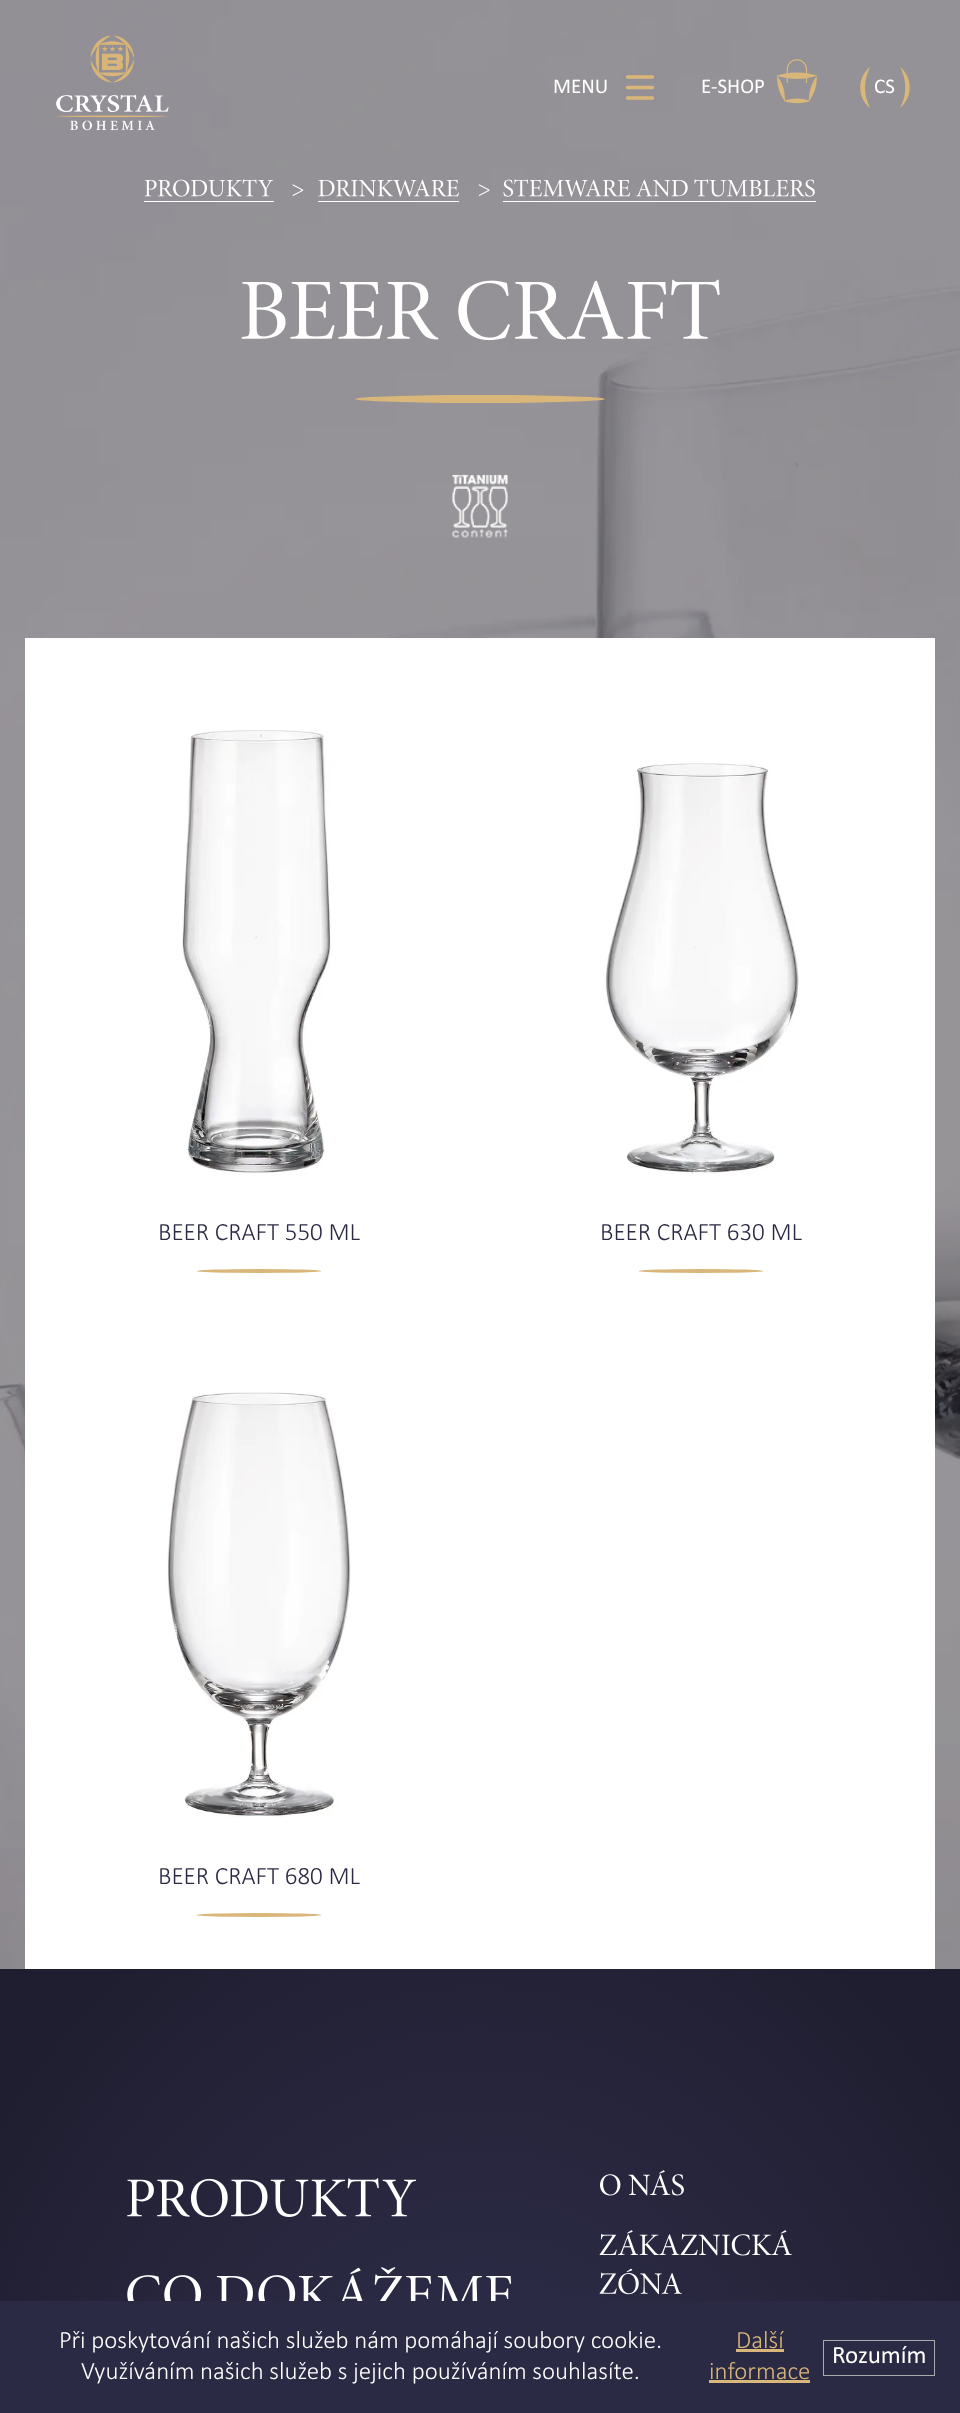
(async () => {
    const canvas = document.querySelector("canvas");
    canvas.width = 960;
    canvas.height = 2413;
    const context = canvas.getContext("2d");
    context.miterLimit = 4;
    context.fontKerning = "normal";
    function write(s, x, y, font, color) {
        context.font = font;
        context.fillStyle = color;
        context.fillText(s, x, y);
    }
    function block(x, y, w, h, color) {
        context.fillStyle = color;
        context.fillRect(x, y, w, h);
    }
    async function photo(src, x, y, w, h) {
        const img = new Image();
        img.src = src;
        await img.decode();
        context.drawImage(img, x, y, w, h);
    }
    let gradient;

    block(0, 0, 960, 2413, "rgb(255, 255, 255)");
    await photo("media/3.png", 0, 0, 960, 1969);
    await photo("media/1.png", 56, 35, 113, 96);
    write("MENU", 553, 93, "21px Calibri", "rgb(255, 255, 255)");
    context.beginPath();
    context.moveTo(652.5, 77);
    context.lineTo(627.5, 77);
    context.moveTo(652.5, 87.5);
    context.lineTo(627.5, 87.5);
    context.moveTo(627.5, 98);
    context.lineTo(652.5, 98);
    context.strokeStyle = "rgb(217, 182, 122)";
    context.lineWidth = 3.4;
    context.lineCap = "round";
    context.stroke();
    write("E-SHOP", 701, 93, "21px Calibri", "rgb(255, 255, 255)");
    await photo("media/2.png", 776, 59, 42, 45);
    context.fillStyle = "rgb(217, 182, 122)";
    context.beginPath();
    context.moveTo(900, 108);
    context.bezierCurveTo(907, 95, 907, 80, 900, 67);
    context.bezierCurveTo(913, 77, 913, 98, 900, 108);
    context.closePath();
    context.moveTo(865, 88);
    context.bezierCurveTo(865, 95, 867, 101, 870, 108);
    context.bezierCurveTo(857, 98, 857, 77, 870, 67);
    context.bezierCurveTo(867, 74, 865, 80, 865, 88);
    context.closePath();
    context.fill("evenodd");
    write("CS", 874, 93, "21px Calibri", "rgb(255, 255, 255)");
    await photo("media/4.png", 144, 179, 130, 18);
    await photo("media/5.png", 292, 184, 12, 13);
    block(144, 201, 130, 1, "rgb(255, 255, 255)");
    await photo("media/6.png", 318, 179, 141, 18);
    await photo("media/7.png", 478, 184, 12, 12);
    block(318, 201, 141, 1, "rgb(255, 255, 255)");
    await photo("media/8.png", 503, 179, 312, 18);
    block(503, 201, 313, 1, "rgb(255, 255, 255)");
    await photo("media/9.png", 241, 279, 479, 62);
    context.fillStyle = "rgb(217, 182, 122)";
    context.beginPath();
    context.ellipse(480, 399, 125, 4, 0, 0, Math.PI * 2);
    context.fill();
    await photo("media/10.png", 452, 474, 56, 64);
    block(25, 638, 910, 1331, "rgb(255, 255, 255)");
    await photo("media/11.png", 182, 730, 149, 444);
    write("BEER CRAFT 550 ML", 158, 1240, "300 25px Calibri", "rgb(43, 42, 68)");
    context.fillStyle = "rgb(217, 182, 122)";
    context.beginPath();
    context.ellipse(259, 1271, 62.5, 2, 0, 0, Math.PI * 2);
    context.fill();
    await photo("media/12.png", 605, 763, 194, 411);
    write("BEER CRAFT 630 ML", 600, 1240, "300 25px Calibri", "rgb(43, 42, 68)");
    context.fillStyle = "rgb(217, 182, 122)";
    context.beginPath();
    context.ellipse(701, 1271, 62.5, 2, 0, 0, Math.PI * 2);
    context.fill();
    await photo("media/13.png", 167, 1392, 184, 425);
    write("BEER CRAFT 680 ML", 158, 1884, "300 25px Calibri", "rgb(43, 42, 68)");
    context.fillStyle = "rgb(217, 182, 122)";
    context.beginPath();
    context.ellipse(259, 1915, 62.5, 2, 0, 0, Math.PI * 2);
    context.fill();
    gradient = context.createRadialGradient(480, 2034.63, 0, 480, 2034.63, 679);
    gradient.addColorStop(0.33, "rgb(43, 42, 68)");
    gradient.addColorStop(0.9, "rgb(31, 30, 48)");
    context.fillStyle = gradient;
    context.beginPath();
    context.rect(0, 1969, 960, 332);
    context.save();
    context.clip();
    context.scale(1, 860 / 679);
    context.fillRect(0, 0, 960, 1906);
    context.restore();
    await photo("media/14.png", 127, 2178, 290, 40);
    await photo("media/15.png", 127, 2267, 385, 34);
    await photo("media/16.png", 600, 2170, 84, 26);
    await photo("media/17.png", 599, 2230, 193, 26);
    await photo("media/18.png", 599, 2268, 83, 27);
    block(0, 2301, 960, 112, "rgb(43, 42, 68)");
    write("Při poskytování našich služeb nám pomáhají soubory cookie.", 59, 2348, "300 25px Calibri", "rgb(255, 255, 255)");
    write("Využíváním našich služeb s jejich používáním souhlasíte.", 81, 2379, "300 25px Calibri", "rgb(255, 255, 255)");
    write("Další", 736, 2348, "300 25px Calibri", "rgb(217, 182, 122)");
    block(736, 2349, 48, 3, "rgb(217, 182, 122)");
    write("informace", 709, 2379, "300 25px Calibri", "rgb(217, 182, 122)");
    block(709, 2380, 101, 3, "rgb(217, 182, 122)");
    context.strokeStyle = "rgb(170, 170, 170)";
    context.lineWidth = 1;
    context.strokeRect(823.5, 2340.5, 111, 35);
    write("Rozumím", 832, 2363, "25px Calibri", "rgb(255, 255, 255)");
})();
